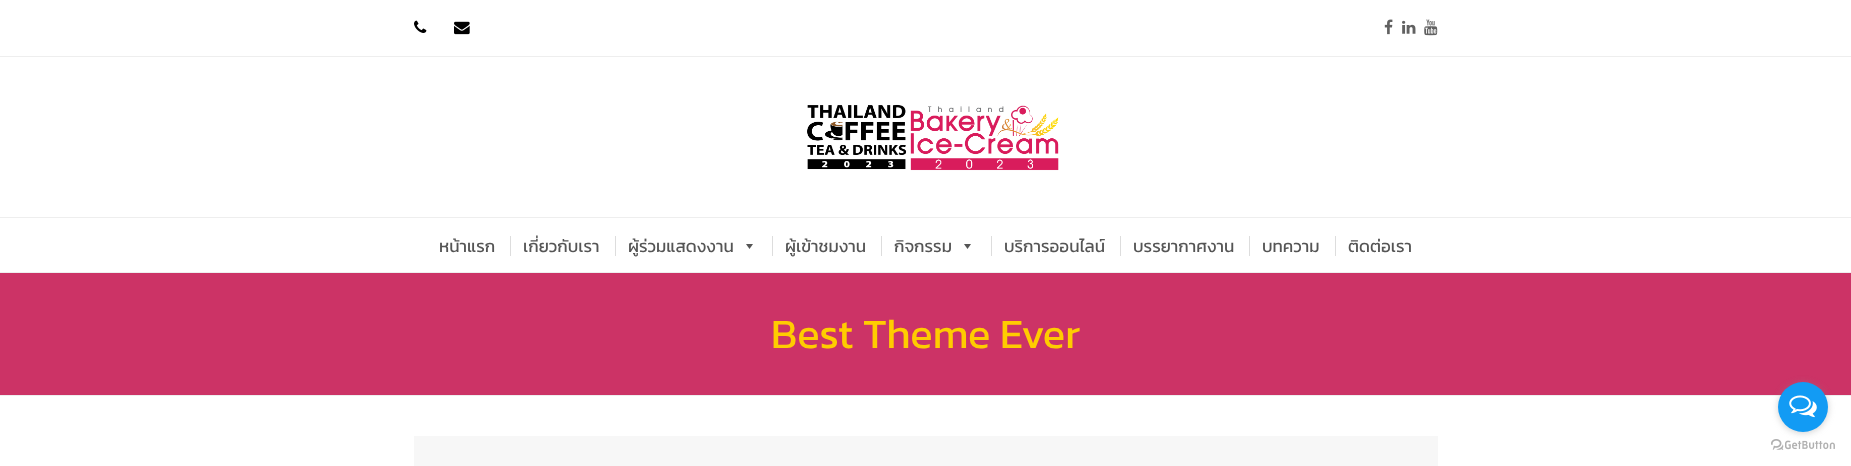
(async () => {
    const canvas = document.querySelector("canvas");
    canvas.width = 1851;
    canvas.height = 466;
    const context = canvas.getContext("2d");
    context.miterLimit = 4;
    context.fontKerning = "normal";
    function write(s, x, y, font, color) {
        context.font = font;
        context.fillStyle = color;
        context.fillText(s, x, y);
    }
    function block(x, y, w, h, color) {
        context.fillStyle = color;
        context.fillRect(x, y, w, h);
    }
    async function photo(src, x, y, w, h) {
        const img = new Image();
        img.src = src;
        await img.decode();
        context.drawImage(img, x, y, w, h);
    }

    block(0, 0, 1851, 466, "rgb(255, 255, 255)");
    block(0, 56, 1851, 1, "rgb(238, 238, 238)");
    await photo("media/1.png", 414, 20, 13, 13);
    await photo("media/2.png", 454, 21, 16, 14);
    await photo("media/3.png", 1384, 19, 9, 16);
    await photo("media/4.png", 1402, 20, 14, 14);
    await photo("media/5.png", 1424, 19, 14, 17);
    await photo("media/6.png", 807, 104, 252, 67);
    block(0, 217, 1851, 1, "rgb(238, 238, 238)");
    write("หน้าแรก", 439, 252, "17px Kanit", "rgb(85, 85, 85)");
    block(510, 236, 1, 20, "rgb(221, 221, 221)");
    write("เกี่ยวกับเรา", 523, 252, "17px Kanit", "rgb(85, 85, 85)");
    block(615, 236, 1, 20, "rgb(221, 221, 221)");
    write("ผู้ร่วมแสดงงาน", 628, 252, "17px Kanit", "rgb(85, 85, 85)");
    context.beginPath();
    context.moveTo(753, 244);
    context.lineTo(749.5, 249);
    context.lineTo(746, 244);
    context.closePath();
    context.fill();
    block(772, 236, 1, 20, "rgb(221, 221, 221)");
    write("ผู้เข้าชมงาน", 785, 252, "17px Kanit", "rgb(85, 85, 85)");
    block(881, 236, 1, 20, "rgb(221, 221, 221)");
    write("กิจกรรม", 894, 252, "17px Kanit", "rgb(85, 85, 85)");
    context.beginPath();
    context.moveTo(971, 244);
    context.lineTo(967.5, 249);
    context.lineTo(964, 244);
    context.closePath();
    context.fill();
    block(991, 236, 1, 20, "rgb(221, 221, 221)");
    write("บริการออนไลน์", 1004, 252, "17px Kanit", "rgb(85, 85, 85)");
    block(1120, 236, 1, 20, "rgb(221, 221, 221)");
    write("บรรยากาศงาน", 1133, 252, "17px Kanit", "rgb(85, 85, 85)");
    block(1249, 236, 1, 20, "rgb(221, 221, 221)");
    write("บทความ", 1262, 252, "17px Kanit", "rgb(85, 85, 85)");
    block(1335, 236, 1, 20, "rgb(221, 221, 221)");
    write("ติดต่อเรา", 1348, 252, "17px Kanit", "rgb(85, 85, 85)");
    block(0, 273, 1851, 122, "rgb(204, 51, 102)");
    block(0, 272, 1851, 1, "rgb(238, 238, 238)");
    block(0, 395, 1851, 1, "rgb(238, 238, 238)");
    write("Best Theme Ever", 771, 348, "41.75px Kanit", "rgb(255, 204, 0)");
    block(414, 436, 1024, 30, "rgb(247, 247, 247)");
    await photo("media/8.png", 1771, 439, 64, 11);
    context.fillStyle = "rgba(136, 136, 136, 0.4)";
    context.filter = "blur(3.5px)";
    context.beginPath();
    context.roundRect(1778, 383, 50, 50, 25);
    context.fill();
    context.filter = "none";
    context.fillStyle = "rgb(18, 155, 244)";
    context.beginPath();
    context.arc(1803, 407, 25, 0, Math.PI * 2);
    context.fill();
    await photo("media/7.png", 1789, 395, 28, 23);
})();
